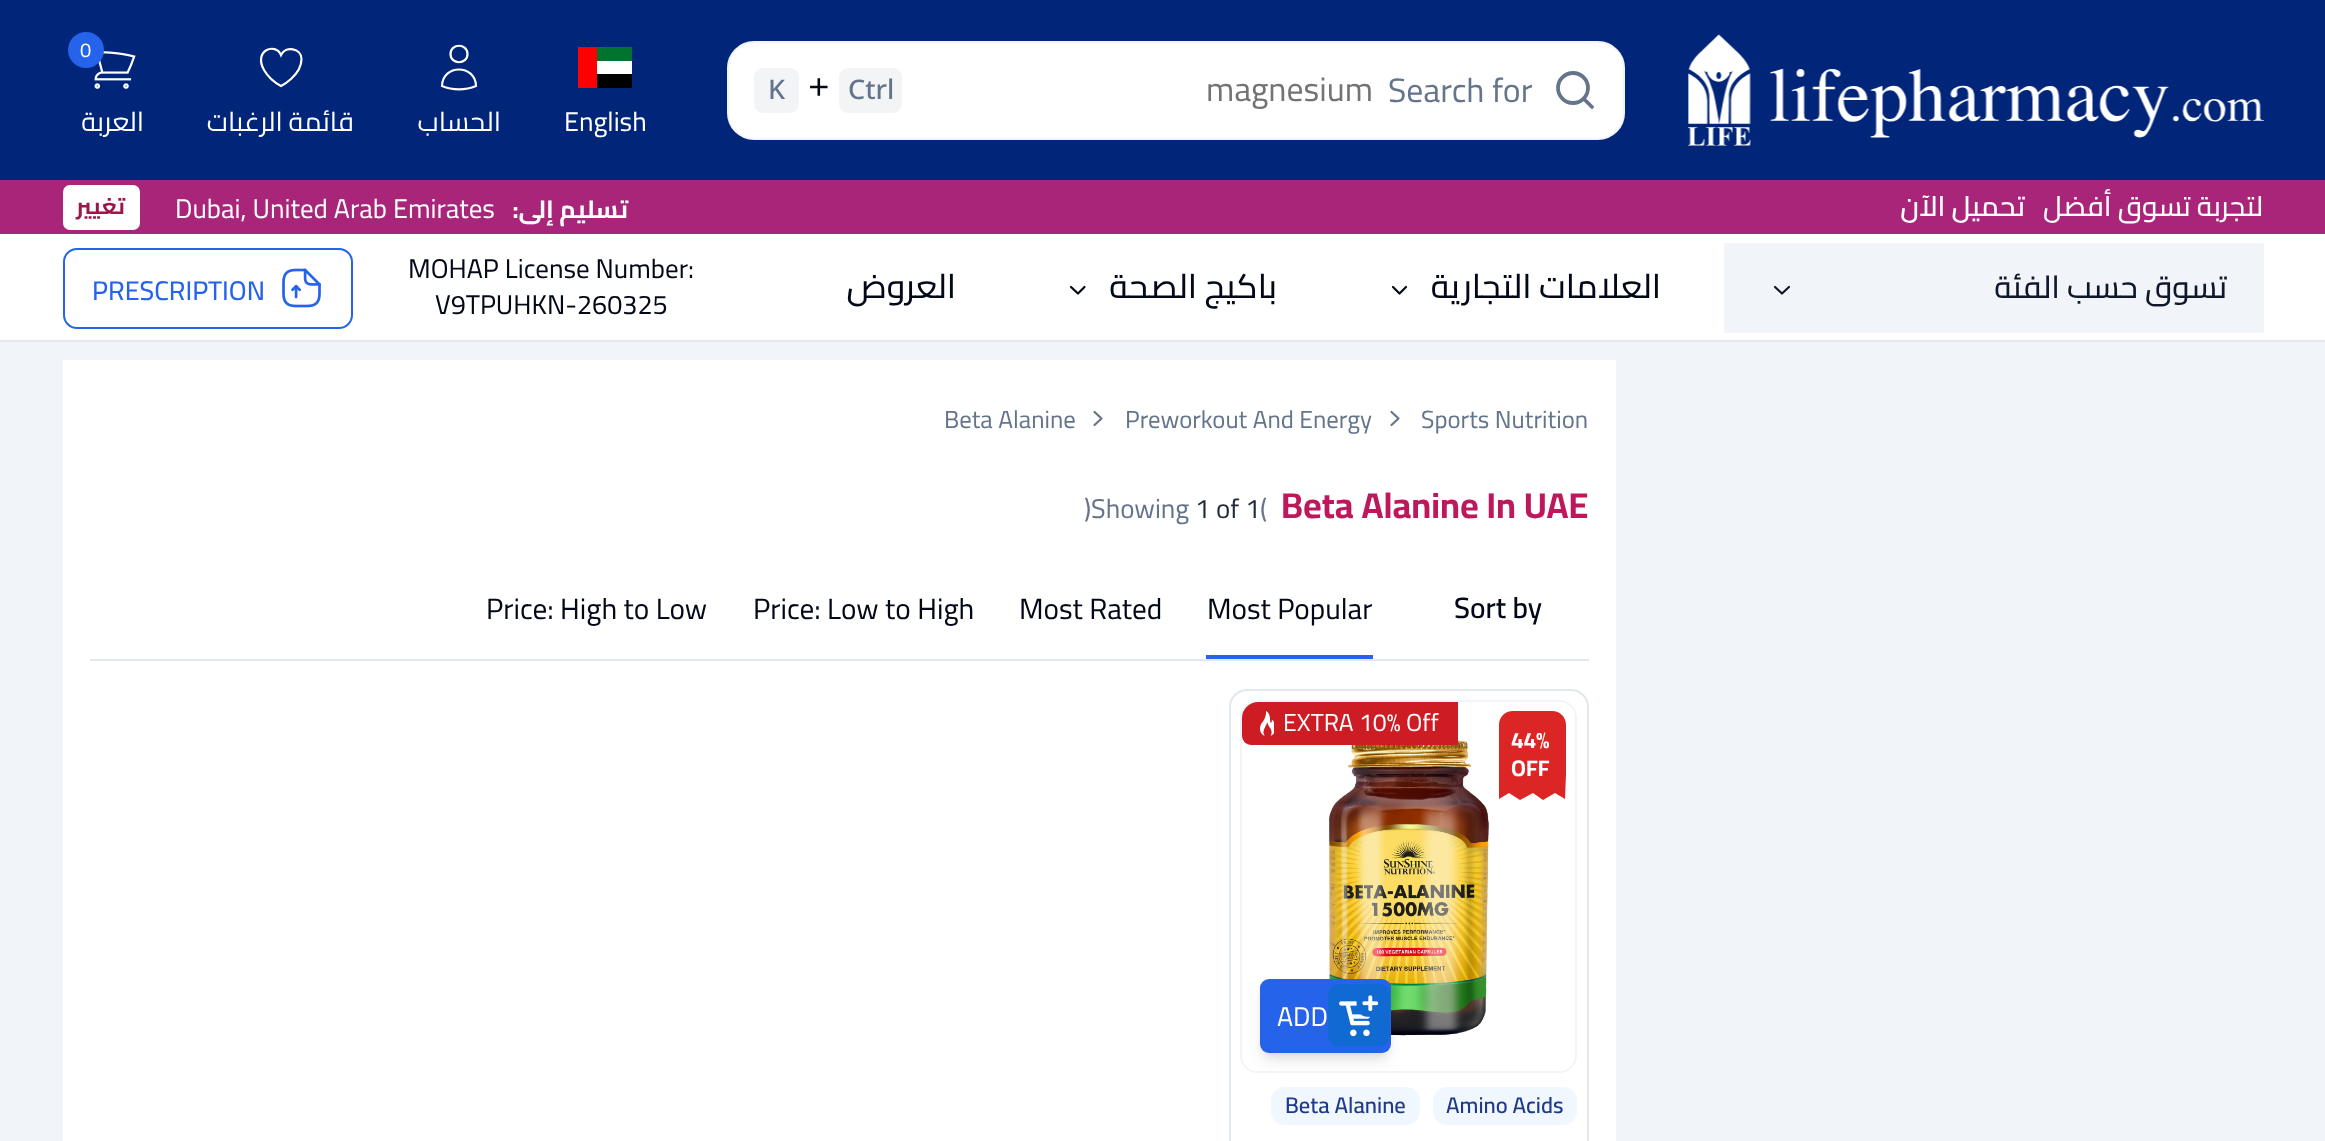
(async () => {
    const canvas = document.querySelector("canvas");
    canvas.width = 2325;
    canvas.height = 1141;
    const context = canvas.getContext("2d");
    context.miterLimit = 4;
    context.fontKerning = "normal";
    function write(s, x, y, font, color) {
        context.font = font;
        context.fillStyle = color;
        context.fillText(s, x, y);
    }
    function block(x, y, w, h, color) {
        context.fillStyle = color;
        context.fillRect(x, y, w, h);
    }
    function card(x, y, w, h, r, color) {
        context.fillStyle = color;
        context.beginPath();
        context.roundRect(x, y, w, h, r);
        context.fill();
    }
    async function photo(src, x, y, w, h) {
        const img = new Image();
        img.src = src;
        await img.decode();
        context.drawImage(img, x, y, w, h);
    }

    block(0, 0, 2325, 1141, "rgb(255, 255, 255)");
    block(0, 0, 2325, 180, "rgb(0, 37, 121)");
    await photo("media/1.png", 94, 51, 42, 38);
    context.fillStyle = "rgb(37, 99, 235)";
    context.beginPath();
    context.arc(86, 50, 18, 0, Math.PI * 2);
    context.fill();
    write("0", 80, 57, "20px Cairo", "rgb(255, 255, 255)");
    context.direction = "rtl";
    write("العربة", 144, 131, "27px Cairo", "rgb(255, 255, 255)");
    context.beginPath();
    context.moveTo(301.5, 59);
    context.bezierCurveTo(301.5, 48, 285.5, 45.5, 281, 55);
    context.bezierCurveTo(275.5, 42, 253, 50.5, 264, 70);
    context.bezierCurveTo(268, 77, 274.5, 82.5, 281, 86);
    context.bezierCurveTo(281, 86, 301.5, 75.5, 301.5, 59);
    context.closePath();
    context.strokeStyle = "rgb(255, 255, 255)";
    context.lineWidth = 2.2;
    context.stroke();
    write("قائمة الرغبات", 354, 131, "27px Cairo", "rgb(255, 255, 255)");
    context.beginPath();
    context.moveTo(467.5, 54);
    context.bezierCurveTo(467.5, 65, 450.5, 65, 450.5, 54);
    context.bezierCurveTo(450.5, 43, 467.5, 43, 467.5, 54);
    context.closePath();
    context.moveTo(442, 86);
    context.bezierCurveTo(442.5, 64, 475.5, 64, 476, 86);
    context.bezierCurveTo(465.5, 90.5, 452.5, 90.5, 442, 86);
    context.closePath();
    context.stroke();
    write("الحساب", 501, 131, "27px Cairo", "rgb(255, 255, 255)");
    block(597, 47, 35, 14, "rgb(0, 115, 47)");
    block(597, 61, 35, 13, "rgb(255, 255, 255)");
    block(597, 74, 35, 14, "rgb(0, 0, 0)");
    block(578, 47, 19, 41, "rgb(255, 0, 0)");
    context.direction = "ltr";
    write("English", 564, 131, "27px Cairo", "rgb(255, 255, 255)");
    context.beginPath();
    context.roundRect(728, 42, 896, 97, 26);
    context.fill();
    context.strokeStyle = "rgb(241, 245, 249)";
    context.lineWidth = 2;
    context.stroke();
    card(754, 68, 45, 45, 9, "rgb(243, 244, 246)");
    write("K", 768, 99, "500 27px Noto Sans", "rgb(100, 116, 139)");
    write("+", 808, 99, "36px Liberation Mono", "rgb(2, 8, 23)");
    card(839, 68, 63, 45, 9, "rgb(243, 244, 246)");
    write("Ctrl", 848, 99, "500 27px Noto Sans", "rgb(100, 116, 139)");
    write("magnesium", 1206, 101, "33.75px Cairo", "rgb(115, 115, 115)");
    write("Search for", 1388, 102, "33.75px Cairo", "rgb(100, 116, 139)");
    context.beginPath();
    context.arc(1573, 88, 15, 0, Math.PI * 2);
    context.strokeStyle = "rgb(100, 116, 139)";
    context.lineWidth = 3.8;
    context.stroke();
    context.beginPath();
    context.moveTo(1592, 107);
    context.lineTo(1584, 99);
    context.lineCap = "round";
    context.lineJoin = "round";
    context.stroke();
    await photo("media/2.png", 1688, 34, 576, 112);
    block(0, 180, 2325, 54, "rgb(169, 37, 121)");
    card(63, 185, 77, 45, 7, "rgb(255, 255, 255)");
    context.direction = "rtl";
    write("تغيير", 125, 214, "bold 22.5px Cairo", "rgb(157, 23, 77)");
    context.direction = "ltr";
    write("Dubai, United Arab Emirates", 175, 218, "27px Cairo", "rgb(255, 255, 255)");
    context.direction = "rtl";
    write("تسليم إلى:", 628, 218, "bold 24.75px Cairo", "rgb(255, 255, 255)");
    write("تحميل الآن", 2025, 216, "600 28px Cairo", "rgb(255, 255, 255)");
    write("لتجربة تسوق أفضل", 2263, 216, "500 28px Cairo", "rgb(255, 255, 255)");
    block(0, 340, 2325, 2, "rgb(226, 232, 240)");
    context.beginPath();
    context.roundRect(64, 249, 288, 79, 13);
    context.strokeStyle = "rgb(37, 99, 235)";
    context.lineWidth = 2;
    context.lineJoin = "miter";
    context.stroke();
    context.direction = "ltr";
    write("PRESCRIPTION", 92, 300, "500 27px Cairo", "rgb(37, 99, 235)");
    await photo("media/3.png", 282, 268, 39, 40);
    write("MOHAP License Number:", 408, 278, "27px Cairo", "rgb(2, 8, 23)");
    write("V9TPUHKN-260325", 435, 314, "27px Cairo", "rgb(2, 8, 23)");
    context.direction = "rtl";
    write("العروض", 956, 298, "500 33.75px Cairo", "rgb(2, 8, 23)");
    context.beginPath();
    context.moveTo(1071, 287);
    context.lineTo(1078, 293.5);
    context.lineTo(1084.5, 287);
    context.strokeStyle = "rgb(2, 8, 23)";
    context.lineWidth = 2.2;
    context.lineJoin = "round";
    context.stroke();
    write("باكيج الصحة", 1277, 298, "500 33.75px Cairo", "rgb(2, 8, 23)");
    context.beginPath();
    context.moveTo(1393, 287);
    context.lineTo(1399.5, 293.5);
    context.lineTo(1406, 287);
    context.stroke();
    write("العلامات التجارية", 1661, 298, "500 33.75px Cairo", "rgb(2, 8, 23)");
    block(1724, 243, 540, 90, "rgb(241, 245, 249)");
    context.beginPath();
    context.moveTo(1775, 287);
    context.lineTo(1782, 293.5);
    context.lineTo(1789, 287);
    context.strokeStyle = "rgb(15, 23, 42)";
    context.stroke();
    write("تسوق حسب الفئة", 2227, 298, "500 31.5px Cairo", "rgb(15, 23, 42)");
    block(0, 342, 2325, 799, "rgb(241, 245, 249)");
    block(63, 360, 1553, 781, "rgb(255, 255, 255)");
    context.direction = "ltr";
    write("Beta Alanine", 944, 428, "24.75px Cairo", "rgb(100, 116, 139)");
    context.beginPath();
    context.moveTo(1094.5, 425);
    context.lineTo(1101.5, 418.5);
    context.lineTo(1094.5, 412);
    context.strokeStyle = "rgb(100, 116, 139)";
    context.stroke();
    write("Preworkout And Energy", 1125, 428, "24.75px Cairo", "rgb(100, 116, 139)");
    context.beginPath();
    context.moveTo(1391.5, 425);
    context.lineTo(1398.5, 418.5);
    context.lineTo(1391.5, 412);
    context.stroke();
    write("Sports Nutrition", 1421, 428, "24.75px Cairo", "rgb(100, 116, 139)");
    write(")", 1084, 518, "27px Cairo", "rgb(100, 116, 139)");
    write("Showing", 1091, 518, "27px Cairo", "rgb(100, 116, 139)");
    write("1 of 1", 1195, 518, "27px Cairo", "rgb(30, 41, 59)");
    write("(", 1260, 518, "27px Cairo", "rgb(100, 116, 139)");
    write("Beta Alanine In UAE", 1281, 518, "bold 36px Cairo", "rgb(190, 24, 93)");
    block(90, 659, 1499, 2, "rgb(226, 232, 240)");
    write("Price: High to Low", 486, 619, "29.25px Cairo", "rgb(2, 8, 23)");
    write("Price: Low to High", 753, 619, "29.25px Cairo", "rgb(2, 8, 23)");
    write("Most Rated", 1019, 619, "29.25px Cairo", "rgb(2, 8, 23)");
    write("Most Popular", 1207, 619, "29.25px Cairo", "rgb(2, 8, 23)");
    block(1206, 655, 167, 4, "rgb(37, 99, 235)");
    write("Sort by", 1454, 618, "600 29.25px Cairo", "rgb(2, 8, 23)");
    context.beginPath();
    context.roundRect(1230, 690, 358, 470, 17);
    context.strokeStyle = "rgb(226, 232, 240)";
    context.lineWidth = 2;
    context.lineJoin = "miter";
    context.stroke();
    context.beginPath();
    context.roundRect(1241, 701, 335, 371, 17);
    context.strokeStyle = "rgb(241, 245, 249)";
    context.stroke();
    await photo("media/4.png", 1242, 702, 333, 369);
    context.fillStyle = "rgb(206, 28, 37)";
    context.beginPath();
    context.roundRect(1242, 702, 216, 43, [16, 0, 0, 9]);
    context.fill();
    await photo("media/5.png", 1260, 711, 14, 25);
    write("EXTRA 10% Off", 1283, 731, "24.75px Cairo", "rgb(255, 255, 255)");
    context.fillStyle = "rgb(220, 38, 38)";
    context.beginPath();
    context.moveTo(1513, 711);
    context.bezierCurveTo(1505, 711, 1499, 717, 1499, 725);
    context.lineTo(1499, 799);
    context.lineTo(1509, 793);
    context.lineTo(1520, 800);
    context.lineTo(1533, 793);
    context.lineTo(1543, 800);
    context.lineTo(1555, 793);
    context.lineTo(1565, 799);
    context.lineTo(1566, 774);
    context.lineTo(1566, 725);
    context.bezierCurveTo(1566, 717, 1560, 711, 1552, 711);
    context.closePath();
    context.fill();
    write("44%", 1511, 748, "bold 22.5px Cairo", "rgb(255, 255, 255)");
    write("OFF", 1511, 776, "bold 22.5px Cairo", "rgb(255, 255, 255)");
    context.fillStyle = "rgba(0, 0, 0, 0.1)";
    context.filter = "blur(4.5px)";
    context.beginPath();
    context.roundRect(1265, 988, 121, 65, 5);
    context.fill();
    context.filter = "none";
    context.filter = "blur(7px)";
    context.beginPath();
    context.roundRect(1262, 990, 126, 70, 7);
    context.fill();
    context.filter = "none";
    card(1260, 979, 131, 74, 9, "rgb(37, 99, 235)");
    write("ADD", 1277, 1026, "27px Cairo", "rgb(255, 255, 255)");
    await photo("media/6.png", 1328, 984, 62, 62);
    card(1271, 1087, 149, 38, 14, "rgb(241, 247, 255)");
    write("Beta Alanine", 1285, 1113, "600 22.5px Cairo", "rgb(30, 58, 138)");
    card(1433, 1087, 144, 38, 14, "rgb(241, 247, 255)");
    write("Amino Acids", 1446, 1113, "600 22.5px Cairo", "rgb(30, 58, 138)");
})();
